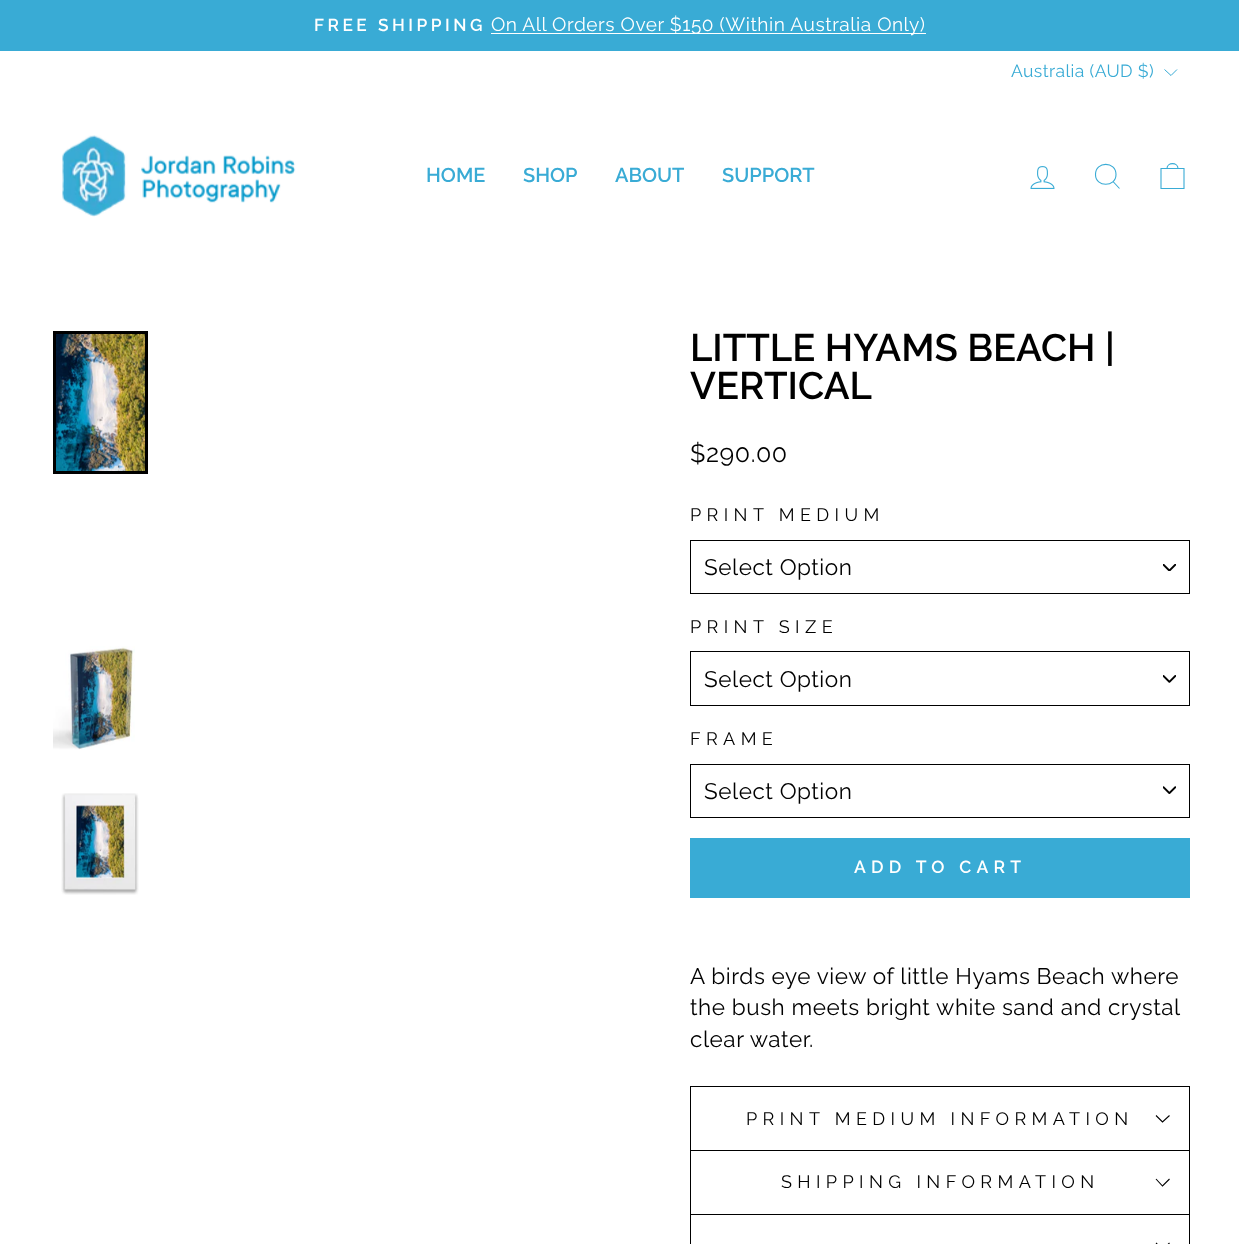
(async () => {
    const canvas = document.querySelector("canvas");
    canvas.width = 1239;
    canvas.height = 1244;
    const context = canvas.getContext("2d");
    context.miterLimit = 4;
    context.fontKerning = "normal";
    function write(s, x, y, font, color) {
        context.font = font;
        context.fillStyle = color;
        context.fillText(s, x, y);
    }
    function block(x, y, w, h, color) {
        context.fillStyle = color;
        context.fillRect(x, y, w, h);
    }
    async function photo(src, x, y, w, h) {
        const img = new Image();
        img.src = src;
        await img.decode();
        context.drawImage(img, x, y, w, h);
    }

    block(0, 0, 1239, 1244, "rgb(255, 255, 255)");
    block(0, 0, 1239, 51, "rgb(57, 171, 213)");
    context.letterSpacing = "3.5px";
    write("FREE SHIPPING", 314, 31, "600 17.25px Raleway", "rgb(255, 255, 255)");
    block(491, 33, 435, 1, "rgb(255, 255, 255)");
    context.letterSpacing = "0.55px";
    write("On All Orders Over $150 (Within Australia Only)", 491, 31, "19.1px Raleway", "rgb(255, 255, 255)");
    context.letterSpacing = "0.4px";
    write("Australia (AUD $)", 1011, 77, "17.5px Raleway", "rgb(57, 171, 213)");
    context.beginPath();
    context.moveTo(1164.5, 69.5);
    context.lineTo(1171, 75.5);
    context.lineTo(1177, 69.5);
    context.strokeStyle = "rgb(57, 171, 213)";
    context.stroke();
    context.fillStyle = "rgba(0, 0, 0, 0.2)";
    context.filter = "blur(0.5px)";
    context.beginPath();
    context.rect(0, 93, 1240, 166);
    context.fill();
    context.filter = "none";
    block(0, 93, 1239, 166, "rgb(255, 255, 255)");
    await photo("media/1.png", 62, 135, 234, 82);
    context.letterSpacing = "0px";
    write("HOME", 426, 182, "600 20px Raleway", "rgb(57, 171, 213)");
    write("SHOP", 523, 182, "600 20px Raleway", "rgb(57, 171, 213)");
    write("ABOUT", 615, 182, "600 20px Raleway", "rgb(57, 171, 213)");
    write("SUPPORT", 722, 182, "600 20px Raleway", "rgb(57, 171, 213)");
    await photo("media/2.png", 1030, 166, 25, 23);
    context.beginPath();
    context.moveTo(1116, 174.5);
    context.bezierCurveTo(1116, 187.5, 1095.5, 187.5, 1095.5, 174.5);
    context.bezierCurveTo(1095.5, 161, 1116, 161, 1116, 174.5);
    context.closePath();
    context.moveTo(1119.5, 188.5);
    context.lineTo(1113, 181.5);
    context.lineWidth = 1.1;
    context.stroke();
    context.beginPath();
    context.moveTo(1161, 168.5);
    context.lineTo(1184, 168.5);
    context.lineTo(1184, 188.5);
    context.lineTo(1161, 188.5);
    context.closePath();
    context.moveTo(1167, 168.5);
    context.bezierCurveTo(1167, 162, 1178, 162, 1178, 168.5);
    context.stroke();
    await photo("media/3.png", 56, 334, 89, 137);
    context.strokeStyle = "rgb(0, 0, 0)";
    context.lineWidth = 3;
    context.strokeRect(54.5, 332.5, 92, 140);
    await photo("media/4.png", 53, 646, 82, 104);
    await photo("media/5.png", 61, 793, 78, 102);
    write("LITTLE HYAMS BEACH |", 690, 361, "600 38.25px Raleway", "rgb(0, 0, 0)");
    write("VERTICAL", 690, 399, "600 38.25px Raleway", "rgb(0, 0, 0)");
    context.letterSpacing = "0.55px";
    write("$290.00", 690, 462, "25px Raleway", "rgb(0, 0, 0)");
    context.letterSpacing = "5.4px";
    write("PRINT MEDIUM", 690, 521, "18px Raleway", "rgb(0, 0, 0)");
    await photo("media/6.png", 1163, 564, 13, 7);
    context.lineWidth = 1;
    context.strokeRect(690.5, 540.5, 499, 53);
    context.letterSpacing = "0.55px";
    write("Select Option", 704, 575, "22.5px Raleway", "rgb(0, 0, 0)");
    context.letterSpacing = "5.4px";
    write("PRINT SIZE", 690, 633, "18px Raleway", "rgb(0, 0, 0)");
    await photo("media/7.png", 1163, 675, 13, 8);
    context.strokeRect(690.5, 651.5, 499, 54);
    context.letterSpacing = "0.55px";
    write("Select Option", 704, 687, "22.5px Raleway", "rgb(0, 0, 0)");
    context.letterSpacing = "5.4px";
    write("FRAME", 690, 745, "18px Raleway", "rgb(0, 0, 0)");
    await photo("media/8.png", 1163, 786, 13, 8);
    context.strokeRect(690.5, 764.5, 499, 53);
    context.letterSpacing = "0.55px";
    write("Select Option", 704, 799, "22.5px Raleway", "rgb(0, 0, 0)");
    block(690, 838, 500, 60, "rgb(57, 171, 213)");
    context.letterSpacing = "5.25px";
    write("ADD TO CART", 854, 873, "600 17.5px Raleway", "rgb(255, 255, 255)");
    context.letterSpacing = "0.55px";
    write("A birds eye view of little Hyams Beach where", 690, 984, "22.5px Raleway", "rgb(0, 0, 0)");
    write("the bush meets bright white sand and crystal", 690, 1015, "22.5px Raleway", "rgb(0, 0, 0)");
    write("clear water.", 690, 1047, "22.5px Raleway", "rgb(0, 0, 0)");
    block(690, 1150, 500, 1, "rgb(0, 0, 0)");
    block(690, 1086, 500, 1, "rgb(0, 0, 0)");
    block(1189, 1086, 1, 64, "rgb(0, 0, 0)");
    block(690, 1086, 1, 64, "rgb(0, 0, 0)");
    context.letterSpacing = "5.4px";
    write("PRINT MEDIUM INFORMATION", 746, 1125, "18px Raleway", "rgb(0, 0, 0)");
    context.beginPath();
    context.moveTo(1156, 1115.5);
    context.lineTo(1162.5, 1122);
    context.lineTo(1169.5, 1115.5);
    context.lineWidth = 1.1;
    context.stroke();
    block(690, 1214, 500, 1, "rgb(0, 0, 0)");
    block(1189, 1151, 1, 63, "rgb(0, 0, 0)");
    block(690, 1151, 1, 63, "rgb(0, 0, 0)");
    write("SHIPPING INFORMATION", 781, 1188, "18px Raleway", "rgb(0, 0, 0)");
    context.beginPath();
    context.moveTo(1156, 1179);
    context.lineTo(1162.5, 1186);
    context.lineTo(1169.5, 1179);
    context.stroke();
    block(1189, 1215, 1, 29, "rgb(0, 0, 0)");
    block(690, 1215, 1, 29, "rgb(0, 0, 0)");
    context.beginPath();
    context.moveTo(1156, 1243);
    context.lineTo(1162.5, 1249.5);
    context.lineTo(1169.5, 1243);
    context.stroke();
})();
